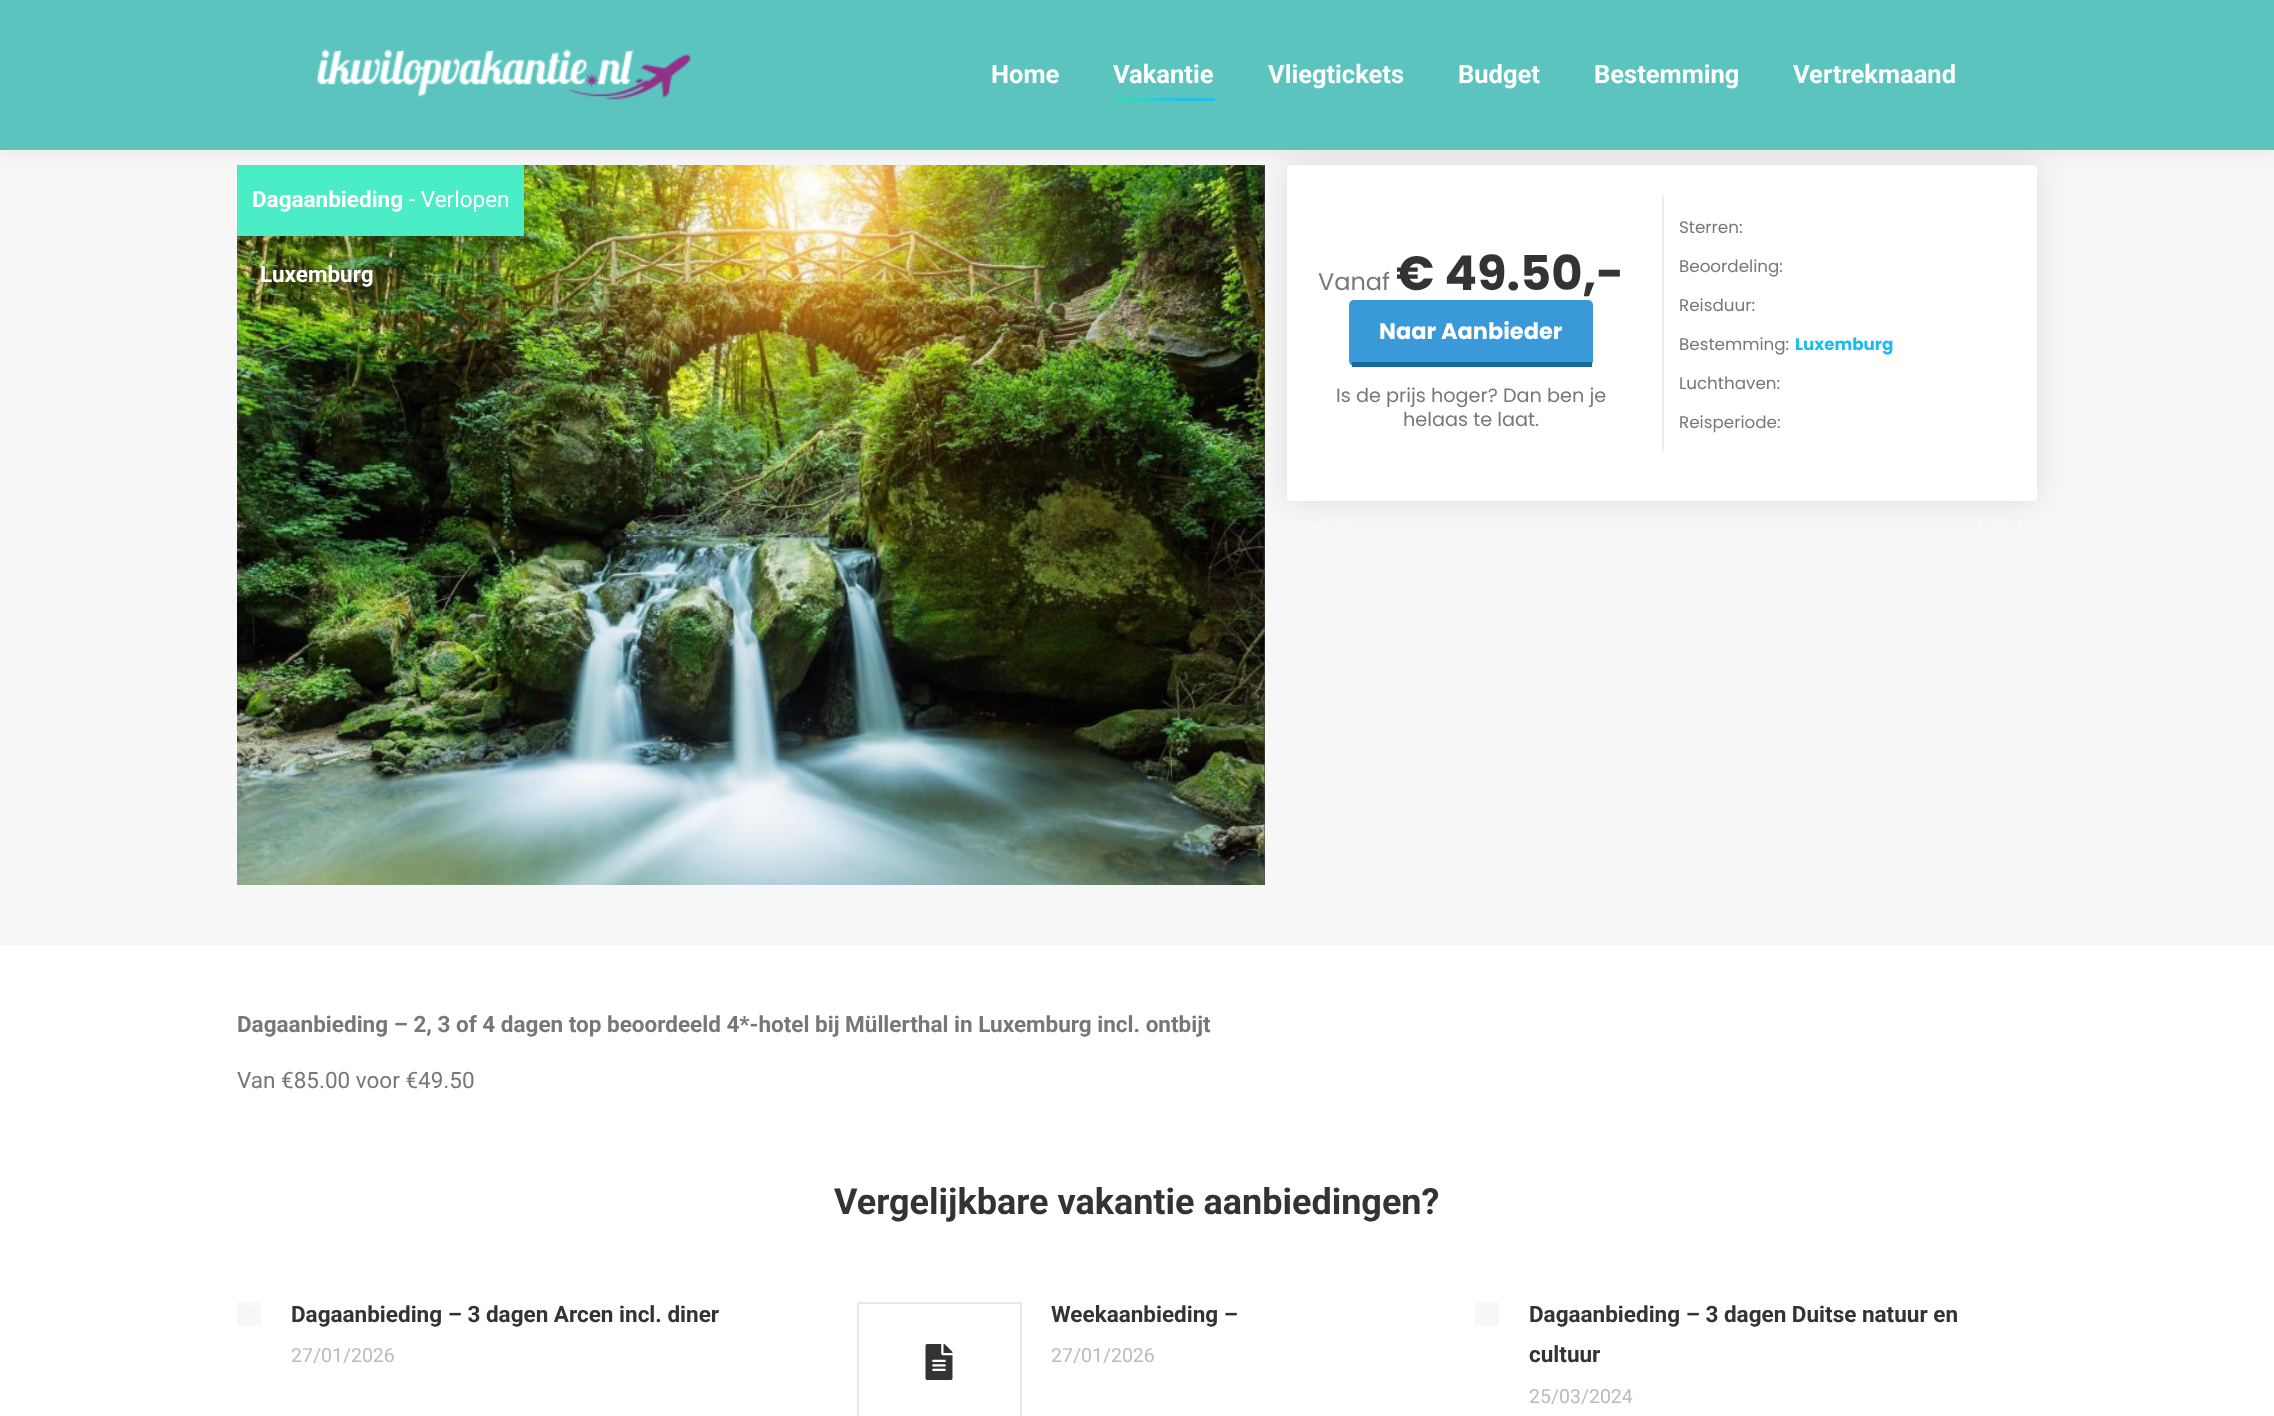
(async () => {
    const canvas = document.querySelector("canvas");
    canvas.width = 2274;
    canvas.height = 1416;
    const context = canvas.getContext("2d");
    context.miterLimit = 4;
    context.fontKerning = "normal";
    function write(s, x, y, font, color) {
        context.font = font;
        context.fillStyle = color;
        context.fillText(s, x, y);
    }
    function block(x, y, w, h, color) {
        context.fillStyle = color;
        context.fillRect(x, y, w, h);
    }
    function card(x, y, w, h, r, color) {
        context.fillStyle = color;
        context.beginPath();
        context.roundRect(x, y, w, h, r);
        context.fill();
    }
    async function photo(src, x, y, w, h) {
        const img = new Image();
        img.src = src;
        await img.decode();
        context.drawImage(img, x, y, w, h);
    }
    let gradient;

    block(0, 0, 2274, 1416, "rgb(255, 255, 255)");
    block(0, 150, 2274, 795, "rgb(247, 247, 247)");
    block(1264, 165, 1, 720, "rgb(74, 74, 74)");
    await photo("media/2.png", 237, 165, 1028, 720);
    block(237, 165, 287, 71, "rgb(74, 237, 197)");
    context.fillStyle = "rgba(0, 0, 0, 0.1)";
    context.filter = "blur(15px)";
    context.beginPath();
    context.roundRect(1287, 165, 750, 336, 3);
    context.fill();
    context.filter = "none";
    card(1287, 165, 750, 336, 3, "rgb(255, 255, 255)");
    context.fillStyle = "rgba(0, 0, 0, 0.07)";
    context.filter = "blur(11px)";
    context.beginPath();
    context.rect(-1, -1, 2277, 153);
    context.fill();
    context.filter = "none";
    block(0, 0, 2274, 150, "rgb(91, 196, 191)");
    await photo("media/1.png", 316, 49, 375, 51);
    write("Home", 991, 83, "bold 25.5px Roboto", "rgb(255, 255, 255)");
    write("Vakantie", 1113, 83, "bold 25.5px Roboto", "rgb(255, 255, 255)");
    gradient = context.createLinearGradient(1215, 99, 1115, 99);
    gradient.addColorStop(0.3, "rgb(39, 188, 233)");
    gradient.addColorStop(1, "rgb(62, 219, 173)");
    context.fillStyle = gradient;
    context.fillRect(1115, 98, 100, 3);
    write("Vliegtickets", 1268, 83, "bold 25.5px Roboto", "rgb(255, 255, 255)");
    write("Budget", 1458, 83, "bold 25.5px Roboto", "rgb(255, 255, 255)");
    write("Bestemming", 1594, 83, "bold 25.5px Roboto", "rgb(255, 255, 255)");
    write("Vertrekmaand", 1793, 83, "bold 25.5px Roboto", "rgb(255, 255, 255)");
    write("Dagaanbieding", 252, 207, "bold 22.5px Roboto", "rgb(255, 255, 255)");
    write("- Verlopen", 409, 207, "22.5px Roboto", "rgb(255, 255, 255)");
    write("Luxemburg", 260, 282, "bold 22.5px Roboto", "rgb(255, 255, 255)");
    write("Vanaf", 1318, 290, "24px Poppins", "rgb(119, 119, 119)");
    write("€ 49.50,-", 1396, 290, "bold 48px Poppins", "rgb(51, 51, 51)");
    card(1349, 300, 244, 66, 5, "rgb(58, 153, 216)");
    write("Naar Aanbieder", 1379, 339, "bold 22.5px Poppins", "rgb(255, 255, 255)");
    block(1352, 362, 240, 5, "rgb(24, 104, 155)");
    write("Is de prijs hoger? Dan ben je", 1336, 402, "19.25px Poppins", "rgb(119, 119, 119)");
    write("helaas te laat.", 1403, 426, "19.25px Poppins", "rgb(119, 119, 119)");
    block(1662, 195, 2, 257, "rgb(238, 238, 238)");
    write("Sterren:", 1679, 233, "16.75px Poppins", "rgb(119, 119, 119)");
    write("Beoordeling:", 1679, 272, "16.75px Poppins", "rgb(119, 119, 119)");
    write("Reisduur:", 1679, 311, "16.75px Poppins", "rgb(119, 119, 119)");
    write("Bestemming:", 1679, 350, "16.75px Poppins", "rgb(119, 119, 119)");
    write("Luxemburg", 1795, 350, "bold 16.75px Poppins", "rgb(30, 187, 240)");
    write("Luchthaven:", 1679, 389, "16.75px Poppins", "rgb(119, 119, 119)");
    write("Reisperiode:", 1679, 428, "16.75px Poppins", "rgb(119, 119, 119)");
    await photo("media/3.png", 1302, 521, 43, 9);
    await photo("media/4.png", 1979, 521, 43, 9);
    write("Dagaanbieding – 2, 3 of 4 dagen top beoordeeld 4*-hotel bij Müllerthal in Luxemburg incl. ontbijt", 237, 1032, "bold 22.5px Roboto", "rgb(119, 119, 119)");
    write("Van €85.00 voor €49.50", 237, 1088, "22.5px Roboto", "rgb(119, 119, 119)");
    write("Vergelijkbare vakantie aanbiedingen?", 834, 1214, "bold 36px Roboto", "rgb(51, 51, 51)");
    block(237, 1302, 24, 24, "rgb(248, 248, 248)");
    await photo("media/5.png", 246, 1311, 6, 6);
    write("Dagaanbieding – 3 dagen Arcen incl. diner", 291, 1322, "bold 22.5px Roboto", "rgb(51, 51, 51)");
    write("27/01/2026", 291, 1362, "19.5px Roboto", "rgb(187, 187, 187)");
    context.strokeStyle = "rgb(231, 231, 231)";
    context.lineWidth = 2;
    context.strokeRect(858, 1303, 163, 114);
    await photo("media/6.png", 925, 1344, 28, 36);
    write("Weekaanbieding –", 1051, 1322, "bold 22.5px Roboto", "rgb(51, 51, 51)");
    write("27/01/2026", 1051, 1362, "19.5px Roboto", "rgb(187, 187, 187)");
    block(1475, 1302, 24, 24, "rgb(248, 248, 248)");
    await photo("media/7.png", 1484, 1311, 6, 6);
    write("Dagaanbieding – 3 dagen Duitse natuur en", 1529, 1322, "bold 22.5px Roboto", "rgb(51, 51, 51)");
    write("cultuur", 1529, 1362, "bold 22.5px Roboto", "rgb(51, 51, 51)");
    write("25/03/2024", 1529, 1403, "19.5px Roboto", "rgb(187, 187, 187)");
})();
